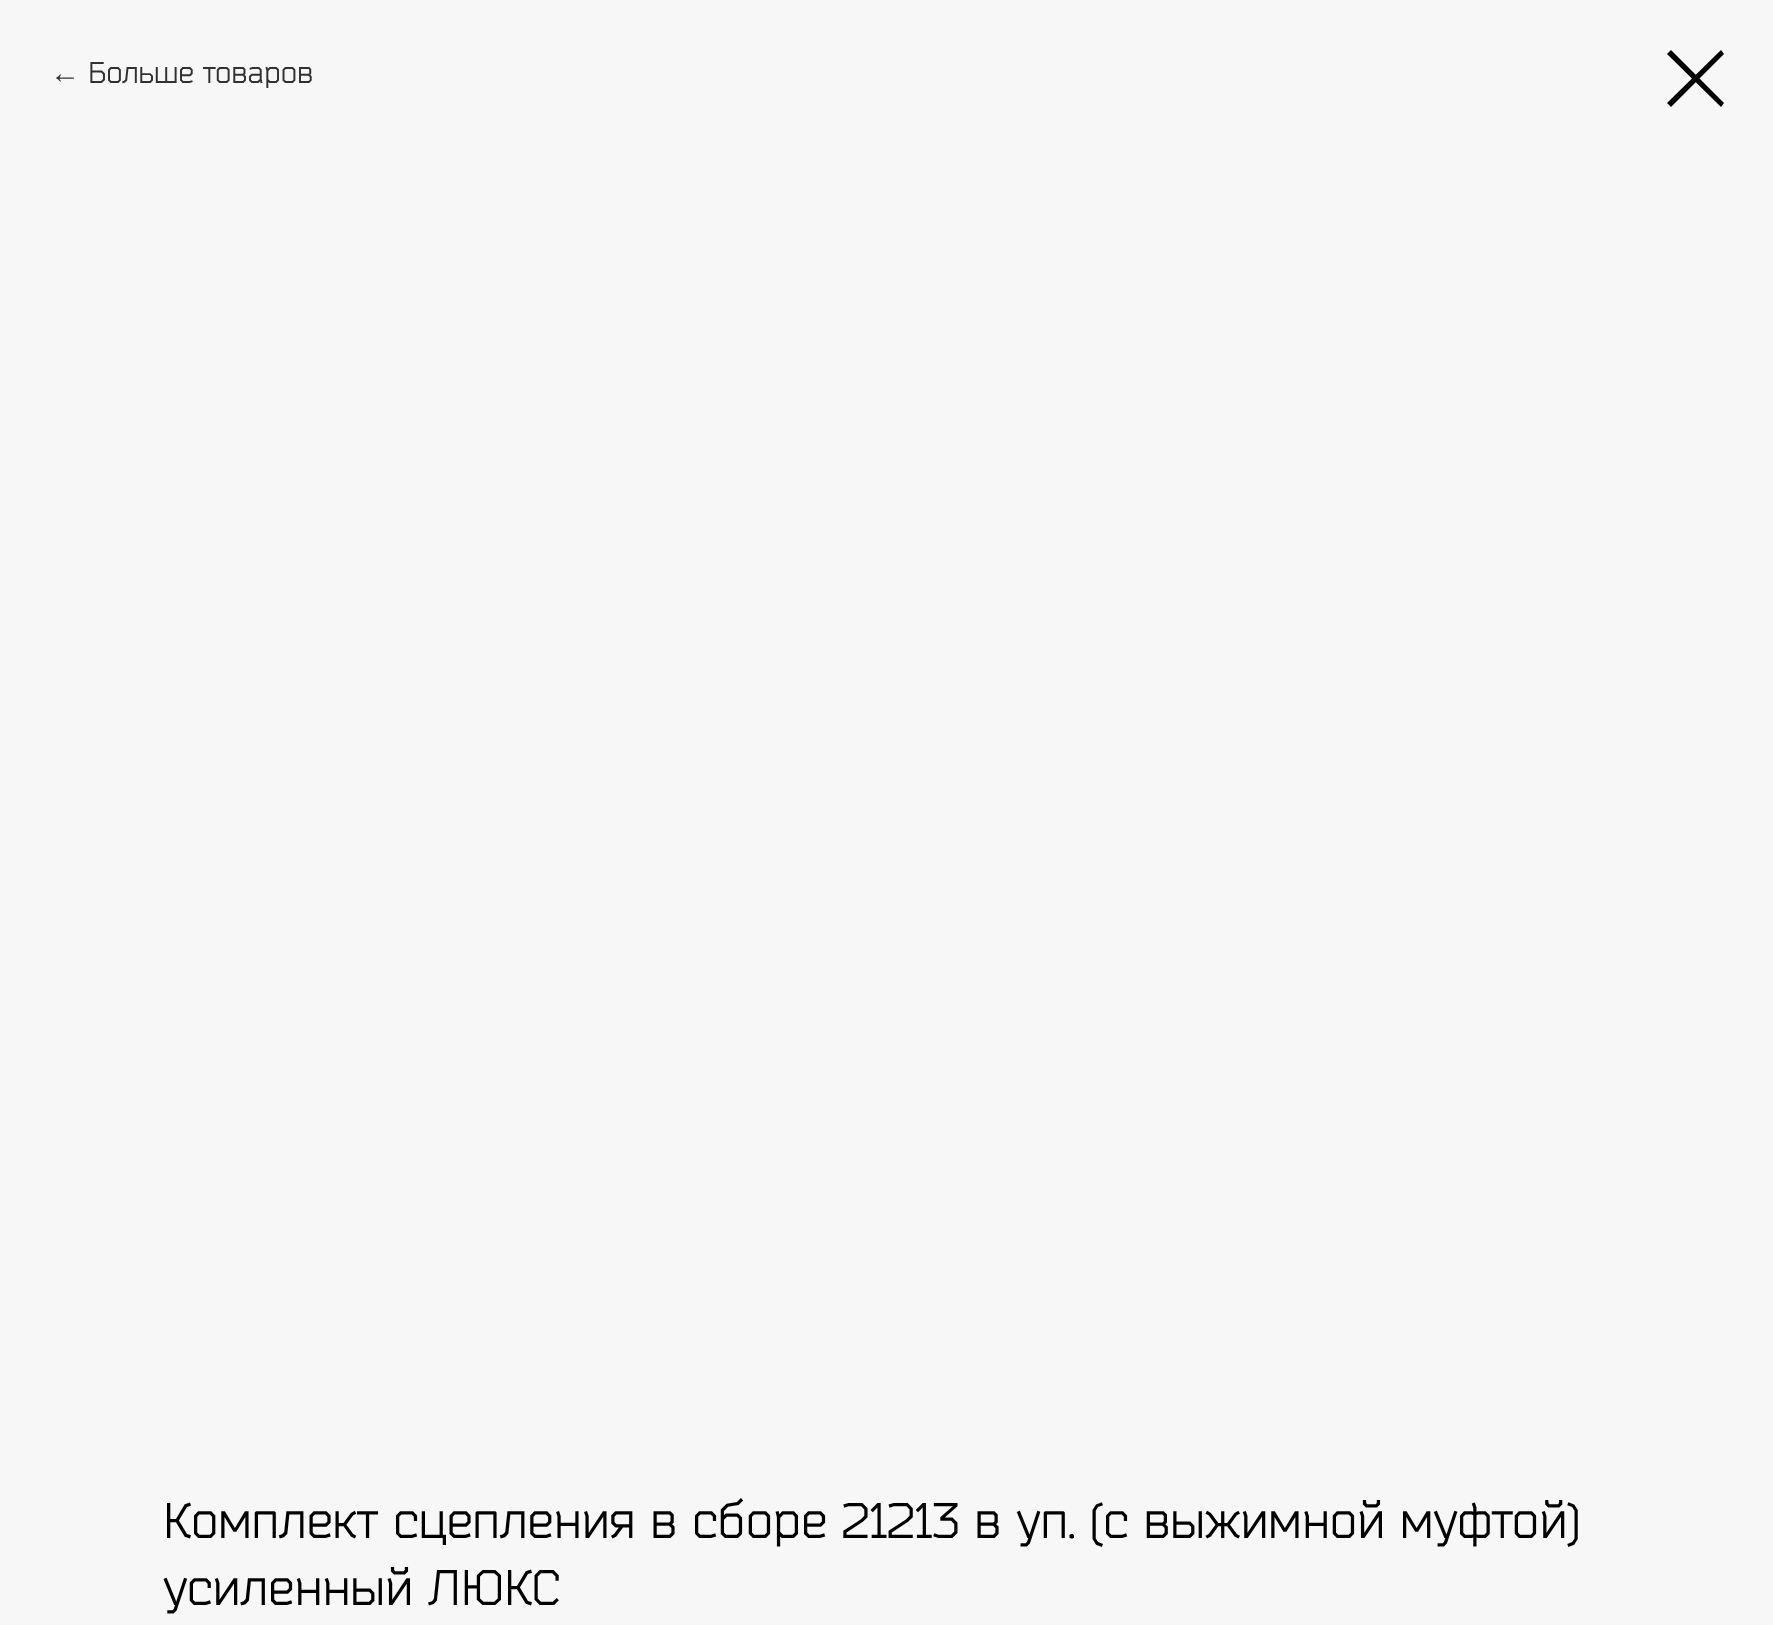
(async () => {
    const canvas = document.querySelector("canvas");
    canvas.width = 1773;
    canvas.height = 1625;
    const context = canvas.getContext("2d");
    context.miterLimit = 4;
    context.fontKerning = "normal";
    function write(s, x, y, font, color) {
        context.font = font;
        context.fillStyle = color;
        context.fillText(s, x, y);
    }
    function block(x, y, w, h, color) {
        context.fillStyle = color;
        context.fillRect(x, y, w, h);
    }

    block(0, 0, 1773, 1625, "rgb(247, 247, 247)");
    write("←", 50, 83, "30px Liberation Sans", "rgb(49, 49, 49)");
    write("Больше товаров", 88, 83, "30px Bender", "rgb(49, 49, 49)");
    context.fillStyle = "rgb(0, 0, 0)";
    context.beginPath();
    context.moveTo(1667, 54);
    context.lineTo(1671, 50);
    context.lineTo(1724, 103);
    context.lineTo(1721, 107);
    context.closePath();
    context.fill("evenodd");
    context.beginPath();
    context.moveTo(1721, 50);
    context.lineTo(1724, 54);
    context.lineTo(1671, 107);
    context.lineTo(1667, 103);
    context.closePath();
    context.fill("evenodd");
    write("Комплект сцепления в сборе 21213 в уп. (с выжимной муфтой)", 163, 1538, "50px Bender", "rgb(0, 0, 0)");
    write("усиленный ЛЮКС", 163, 1605, "50px Bender", "rgb(0, 0, 0)");
})();
